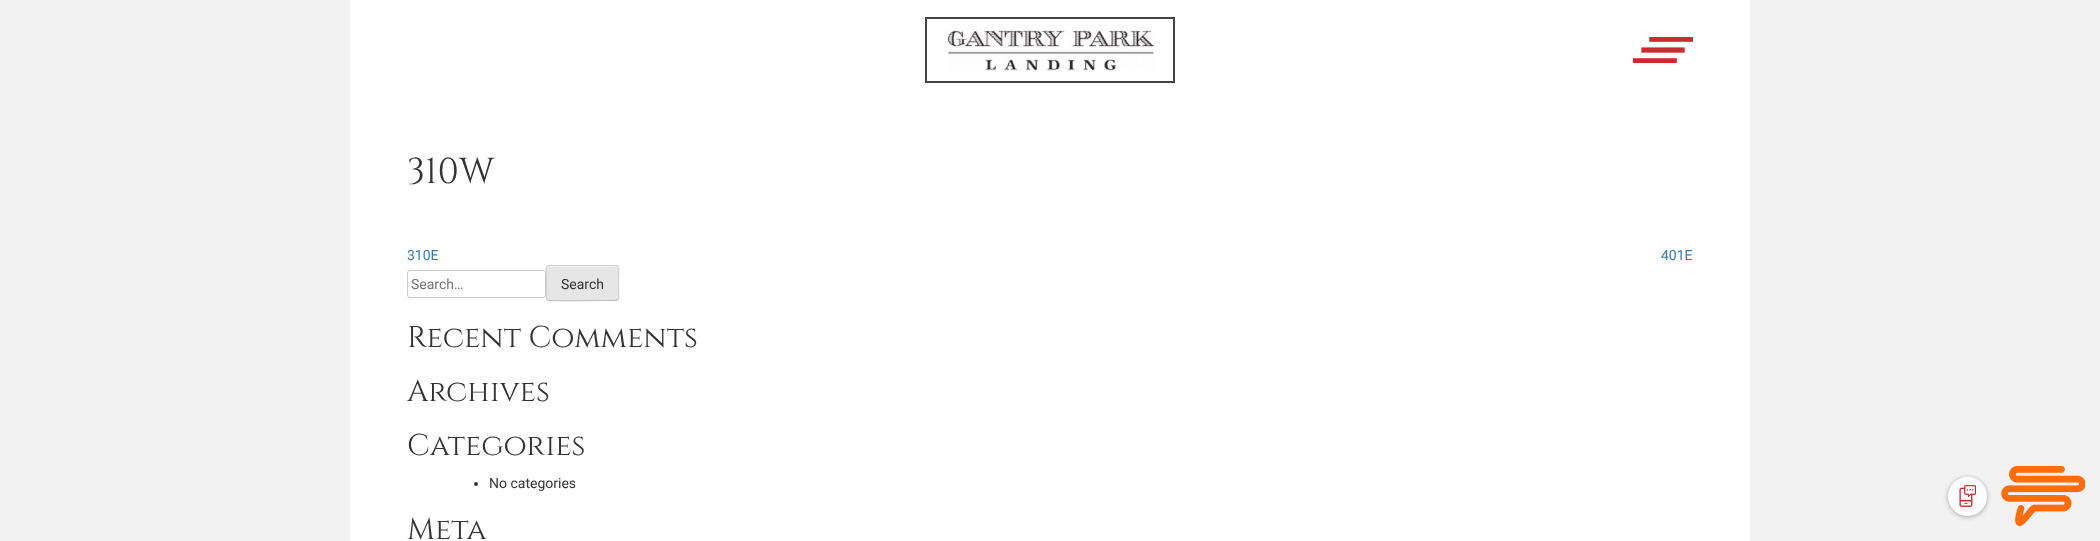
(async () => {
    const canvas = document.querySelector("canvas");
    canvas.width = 2100;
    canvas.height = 541;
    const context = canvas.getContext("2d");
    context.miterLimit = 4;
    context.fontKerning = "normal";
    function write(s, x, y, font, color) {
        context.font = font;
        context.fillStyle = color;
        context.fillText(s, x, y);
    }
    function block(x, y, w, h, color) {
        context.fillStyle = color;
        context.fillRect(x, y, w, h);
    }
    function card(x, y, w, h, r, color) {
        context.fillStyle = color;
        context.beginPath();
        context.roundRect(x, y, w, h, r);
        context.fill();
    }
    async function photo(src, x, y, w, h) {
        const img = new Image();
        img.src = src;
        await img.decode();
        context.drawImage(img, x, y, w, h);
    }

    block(0, 0, 2100, 541, "rgb(242, 242, 242)");
    block(350, 0, 1400, 541, "rgb(255, 255, 255)");
    context.strokeStyle = "rgb(68, 68, 68)";
    context.lineWidth = 2;
    context.strokeRect(926, 18, 248, 64);
    await photo("media/1.png", 947, 30, 207, 41);
    await photo("media/2.png", 1633, 37, 60, 26);
    write("310W", 407, 183, "36px Cinzel", "rgb(51, 51, 51)");
    write("310E", 407, 260, "14px Roboto", "rgb(51, 122, 183)");
    write("401E", 1661, 260, "14px Roboto", "rgb(51, 122, 183)");
    context.beginPath();
    context.roundRect(407.5, 270.5, 138, 27, 2.5);
    context.strokeStyle = "rgb(204, 204, 204)";
    context.lineWidth = 1;
    context.stroke();
    write("Search…", 411, 289, "14px Roboto", "rgb(117, 117, 117)");
    card(546, 265, 73, 36, 3, "rgb(230, 230, 230)");
    context.fillStyle = "rgb(243, 243, 243)";
    context.beginPath();
    context.moveTo(549, 267);
    context.lineTo(616, 267);
    context.bezierCurveTo(617, 267, 618, 268, 618, 269);
    context.bezierCurveTo(618, 263, 608, 266, 605, 266);
    context.lineTo(560, 266);
    context.bezierCurveTo(557, 266, 547, 263, 547, 269);
    context.bezierCurveTo(547, 268, 548, 267, 549, 267);
    context.closePath();
    context.fill();
    context.beginPath();
    context.moveTo(618, 300);
    context.lineTo(616, 300.5);
    context.lineTo(605, 300.5);
    context.bezierCurveTo(598.5, 300.5, 549.5, 301.5, 547.5, 300);
    context.lineTo(547, 300);
    context.strokeStyle = "rgb(187, 187, 187)";
    context.stroke();
    context.beginPath();
    context.moveTo(547, 300);
    context.bezierCurveTo(545.5, 298, 546.5, 286, 546.5, 283);
    context.bezierCurveTo(546.5, 263.5, 542.5, 265.5, 560, 265.5);
    context.lineTo(605, 265.5);
    context.bezierCurveTo(622.5, 265.5, 618.5, 263.5, 618.5, 283);
    context.bezierCurveTo(618.5, 286, 619.5, 298, 618, 300);
    context.strokeStyle = "rgb(204, 204, 204)";
    context.stroke();
    write("Search", 561, 289, "14px Roboto", "rgb(51, 51, 51)");
    write("Recent Comments", 407, 347, "30px Cinzel", "rgb(51, 51, 51)");
    write("Archives", 407, 401, "30px Cinzel", "rgb(51, 51, 51)");
    write("Categories", 407, 455, "30px Cinzel", "rgb(51, 51, 51)");
    context.beginPath();
    context.arc(476, 484, 2, 0, Math.PI * 2);
    context.fill();
    write("No categories", 489, 488, "14px Roboto", "rgb(51, 51, 51)");
    write("Meta", 407, 539, "30px Cinzel", "rgb(51, 51, 51)");
    context.fillStyle = "rgba(0, 0, 0, 0.3)";
    context.filter = "blur(2.5px)";
    context.beginPath();
    context.roundRect(1948, 478, 39, 39, 19.5);
    context.fill();
    context.filter = "none";
    context.fillStyle = "rgb(255, 255, 255)";
    context.beginPath();
    context.arc(1967.5, 496.5, 19.5, 0, Math.PI * 2);
    context.fill();
    await photo("media/3.png", 1959, 485, 17, 22);
    await photo("media/4.png", 2001, 466, 84, 60);
})();
